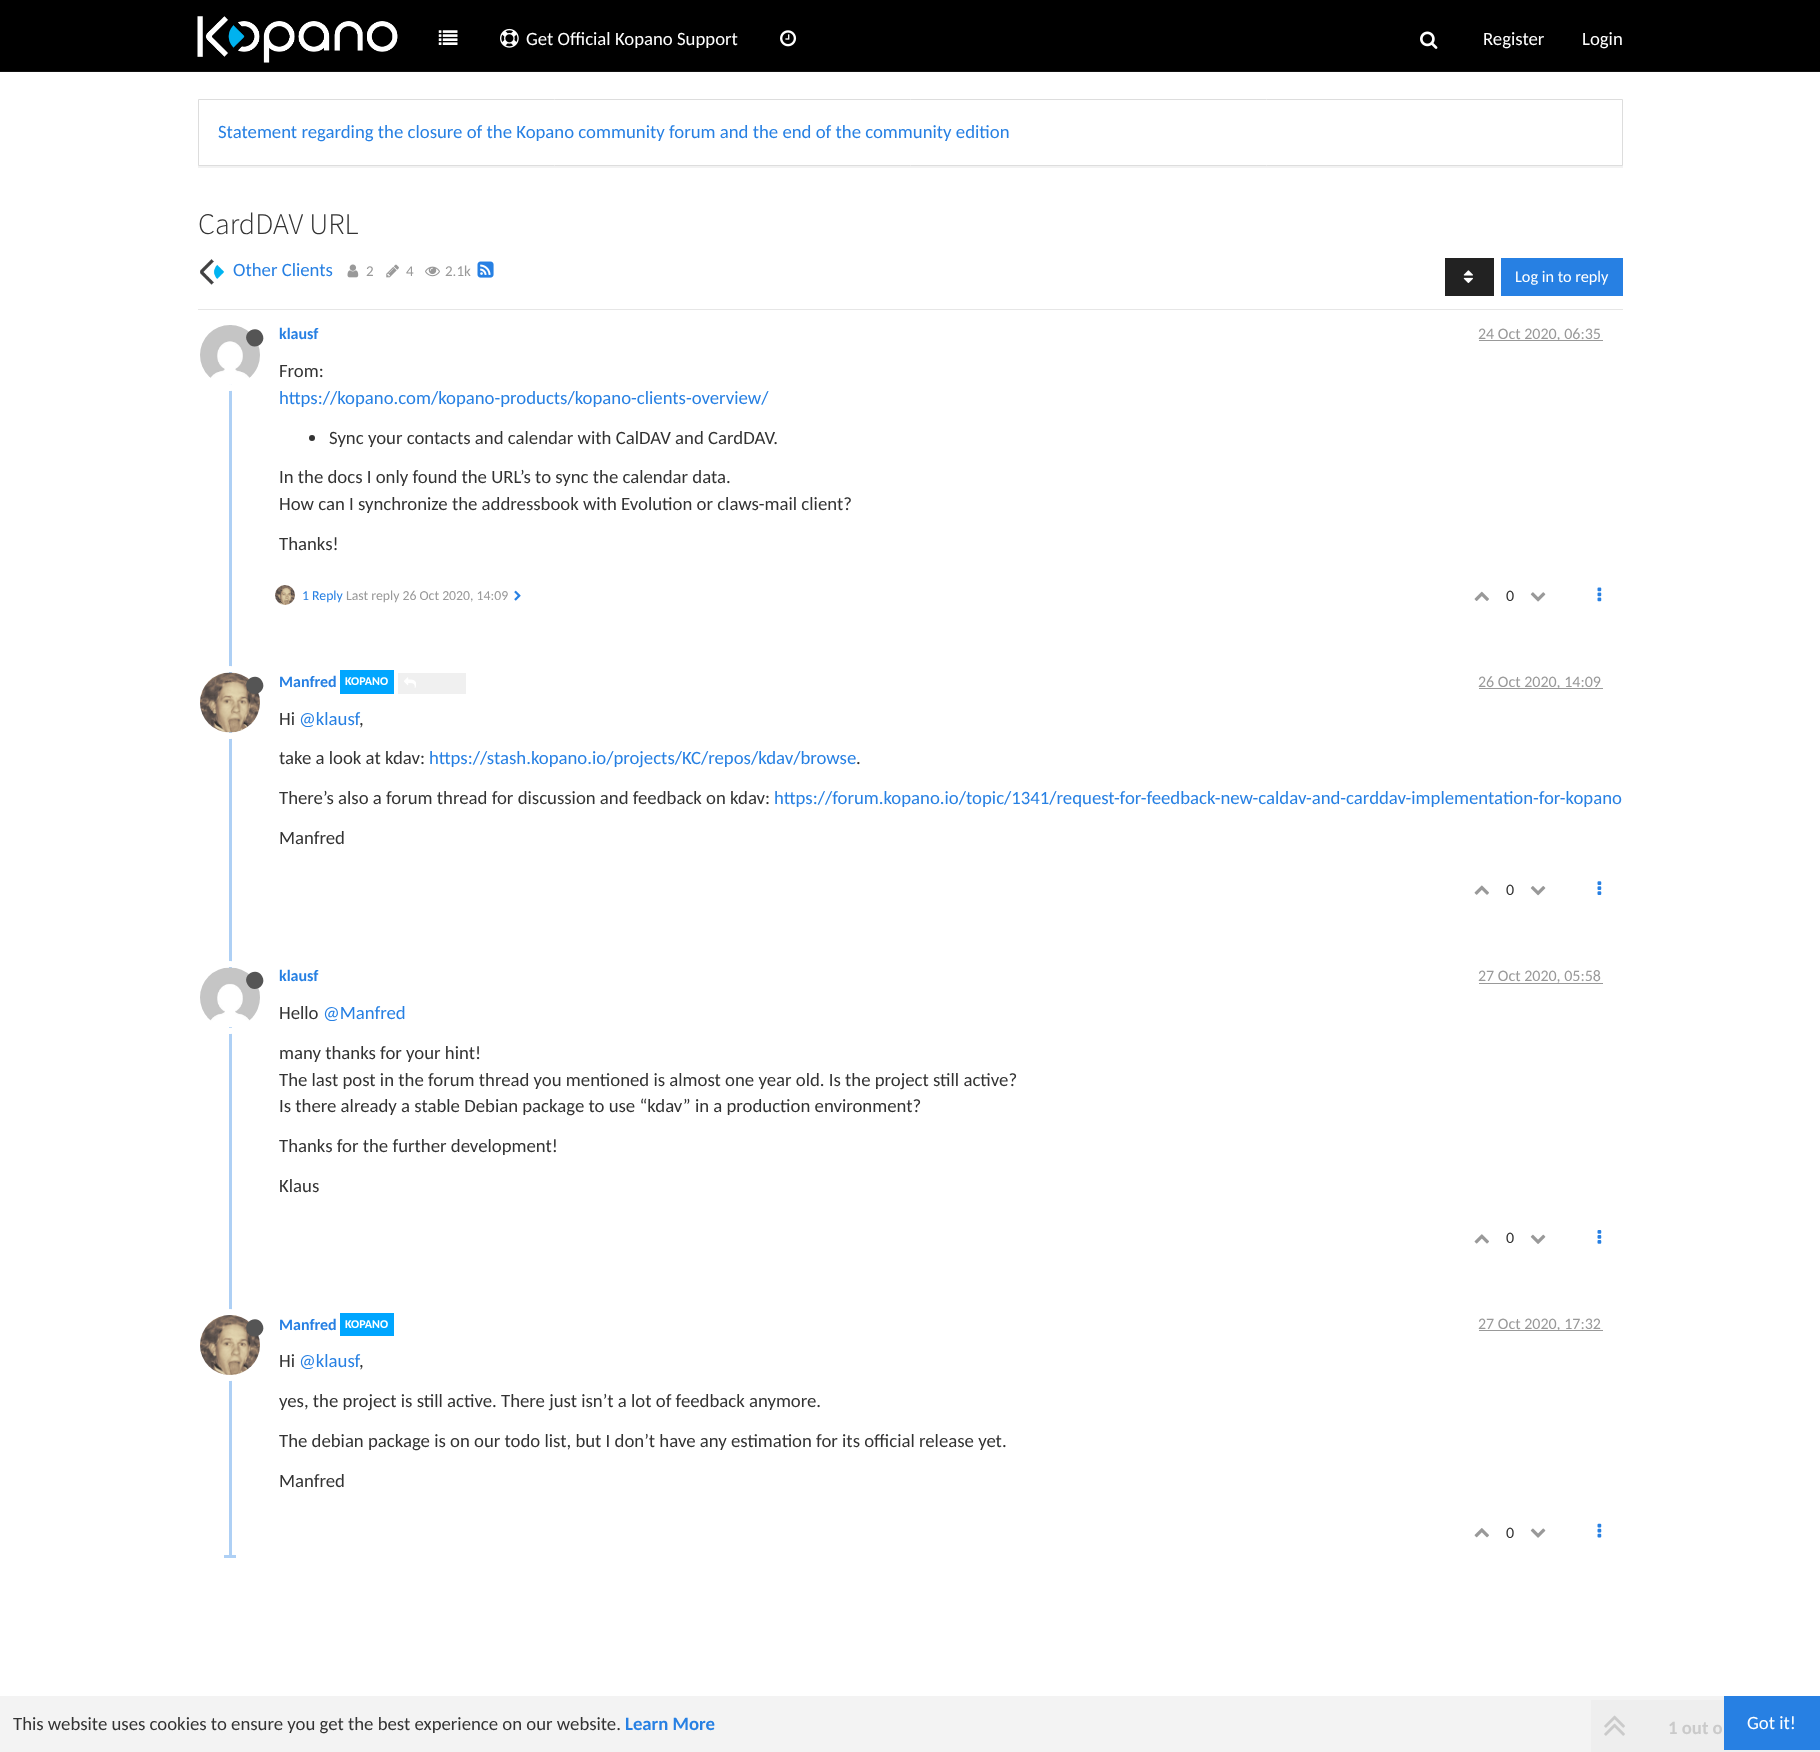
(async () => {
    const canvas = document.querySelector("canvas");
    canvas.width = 1820;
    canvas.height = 1752;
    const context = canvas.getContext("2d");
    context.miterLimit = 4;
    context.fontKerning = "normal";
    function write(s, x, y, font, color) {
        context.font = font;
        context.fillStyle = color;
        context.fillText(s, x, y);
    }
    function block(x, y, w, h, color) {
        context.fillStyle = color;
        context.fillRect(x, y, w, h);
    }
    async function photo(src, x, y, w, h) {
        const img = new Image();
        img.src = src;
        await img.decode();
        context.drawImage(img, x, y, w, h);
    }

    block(0, 0, 1820, 1752, "rgb(255, 255, 255)");
    block(0, 1696, 1724, 56, "rgb(243, 243, 243)");
    block(0, 0, 1820, 71, "rgb(0, 0, 0)");
    block(0, 71, 1820, 1, "rgb(18, 18, 18)");
    await photo("media/1.png", 197, 16, 201, 47);
    await photo("media/2.png", 438, 30, 20, 15);
    await photo("media/3.png", 500, 28, 19, 20);
    write("Get Official Kopano Support", 526, 45, "18.75px Carlito", "rgb(255, 255, 255)");
    await photo("media/4.png", 780, 30, 17, 17);
    await photo("media/5.png", 1420, 31, 18, 18);
    write("Register", 1483, 45, "18.75px Carlito", "rgb(255, 255, 255)");
    write("Login", 1582, 45, "18.75px Carlito", "rgb(255, 255, 255)");
    context.fillStyle = "rgba(0, 0, 0, 0.05)";
    context.filter = "blur(0.5px)";
    context.beginPath();
    context.rect(198, 100, 1425, 68);
    context.fill();
    context.filter = "none";
    context.fillStyle = "rgb(255, 255, 255)";
    context.beginPath();
    context.rect(198.5, 99.5, 1424, 66);
    context.fill();
    context.strokeStyle = "rgb(221, 221, 221)";
    context.stroke();
    write("Statement regarding the closure of the Kopano community forum and the end of the community edition", 218, 138, "18.75px Carlito", "rgb(39, 128, 227)");
    write("CardDAV URL", 198, 234, "300 30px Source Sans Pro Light", "rgb(51, 51, 51)");
    block(198, 309, 1425, 1, "rgb(230, 230, 230)");
    await photo("media/6.png", 198, 258, 28, 28);
    write("Other Clients", 233, 276, "18.75px Carlito", "rgb(39, 128, 227)");
    await photo("media/7.png", 347, 264, 12, 14);
    write("2", 366, 276, "15px Carlito", "rgb(153, 153, 153)");
    await photo("media/8.png", 386, 264, 13, 14);
    write("4", 406, 276, "15px Carlito", "rgb(153, 153, 153)");
    await photo("media/9.png", 425, 266, 15, 11);
    write("2.1k", 445, 276, "15px Carlito", "rgb(153, 153, 153)");
    await photo("media/10.png", 477, 261, 17, 17);
    block(1445, 258, 49, 38, "rgb(34, 34, 34)");
    await photo("media/11.png", 1463, 270, 10, 13);
    block(1501, 258, 122, 38, "rgb(39, 128, 227)");
    write("Log in to reply", 1515, 282, "16.25px Carlito", "rgb(255, 255, 255)");
    block(229, 323, 3, 1235, "rgb(174, 208, 245)");
    context.beginPath();
    context.arc(230, 355, 33, 0, Math.PI * 2);
    context.strokeStyle = "rgb(255, 255, 255)";
    context.lineWidth = 6;
    context.stroke();
    await photo("media/12.png", 200, 325, 60, 60);
    context.fillStyle = "rgb(85, 85, 85)";
    context.beginPath();
    context.moveTo(262, 333.5);
    context.bezierCurveTo(268, 343.5, 253, 352, 247.5, 342);
    context.bezierCurveTo(241.5, 332.5, 256.5, 324, 262, 333.5);
    context.closePath();
    context.fill();
    write("klausf", 279, 339, "bold 16px Carlito", "rgb(39, 128, 227)");
    block(1479, 340, 124, 1, "rgb(153, 153, 153)");
    write("24 Oct 2020, 06:35", 1478, 339, "16px Carlito", "rgb(153, 153, 153)");
    write("From:", 279, 377, "18.75px Carlito", "rgb(51, 51, 51)");
    write("https://kopano.com/kopano-products/kopano-clients-overview/", 279, 404, "18.75px Carlito", "rgb(39, 128, 227)");
    context.fillStyle = "rgb(51, 51, 51)";
    context.beginPath();
    context.arc(312, 438, 3, 0, Math.PI * 2);
    context.fill();
    write("Sync your contacts and calendar with CalDAV and CardDAV.", 329, 444, "18.75px Carlito", "rgb(51, 51, 51)");
    write("In the docs I only found the URL’s to sync the calendar data.", 279, 483, "18.75px Carlito", "rgb(51, 51, 51)");
    write("How can I synchronize the addressbook with Evolution or claws-mail client?", 279, 510, "18.75px Carlito", "rgb(51, 51, 51)");
    write("Thanks!", 279, 550, "18.75px Carlito", "rgb(51, 51, 51)");
    await photo("media/13.png", 275, 585, 20, 20);
    write("1 Reply", 302, 600, "13.75px Carlito", "rgb(39, 128, 227)");
    write("Last reply 26 Oct 2020, 14:09", 346, 600, "13.75px Carlito", "rgb(153, 153, 153)");
    await photo("media/14.png", 514, 590, 7, 11);
    await photo("media/15.png", 1474, 591, 15, 10);
    write("0", 1506, 601, "16px Carlito", "rgb(51, 51, 51)");
    await photo("media/16.png", 1530, 592, 16, 10);
    await photo("media/17.png", 1597, 587, 5, 15);
    context.beginPath();
    context.roundRect(197, 669, 66, 67, 33);
    context.stroke();
    await photo("media/18.png", 200, 672, 60, 61);
    context.fillStyle = "rgb(85, 85, 85)";
    context.beginPath();
    context.moveTo(262, 681);
    context.bezierCurveTo(268, 691, 253, 699.5, 247.5, 689.5);
    context.bezierCurveTo(241.5, 680, 256.5, 671.5, 262, 681);
    context.closePath();
    context.fill();
    write("Manfred", 279, 687, "bold 16px Carlito", "rgb(39, 128, 227)");
    block(340, 670, 54, 24, "rgb(0, 166, 255)");
    write("KOPANO", 345, 685, "bold 12px Carlito", "rgb(255, 255, 255)");
    block(398, 673, 68, 21, "rgb(240, 240, 240)");
    await photo("media/19.png", 404, 677, 12, 11);
    block(1479, 688, 124, 1, "rgb(153, 153, 153)");
    write("26 Oct 2020, 14:09", 1478, 687, "16px Carlito", "rgb(153, 153, 153)");
    write("Hi", 279, 725, "18.75px Carlito", "rgb(51, 51, 51)");
    write("@klausf", 299, 725, "18.75px Carlito", "rgb(39, 128, 227)");
    write(",", 359, 725, "18.75px Carlito", "rgb(51, 51, 51)");
    write("take a look at kdav:", 279, 764, "18.75px Carlito", "rgb(51, 51, 51)");
    write("https://stash.kopano.io/projects/KC/repos/kdav/browse", 429, 764, "18.75px Carlito", "rgb(39, 128, 227)");
    write(".", 856, 764, "18.75px Carlito", "rgb(51, 51, 51)");
    write("There’s also a forum thread for discussion and feedback on kdav:", 279, 804, "18.75px Carlito", "rgb(51, 51, 51)");
    write("https://forum.kopano.io/topic/1341/request-for-feedback-new-caldav-and-carddav-implementation-for-kopano", 774, 804, "18.75px Carlito", "rgb(39, 128, 227)");
    write("Manfred", 279, 844, "18.75px Carlito", "rgb(51, 51, 51)");
    await photo("media/20.png", 1474, 885, 15, 10);
    write("0", 1506, 895, "16px Carlito", "rgb(51, 51, 51)");
    await photo("media/21.png", 1530, 886, 16, 10);
    await photo("media/22.png", 1597, 881, 5, 14);
    context.beginPath();
    context.roundRect(197, 964, 66, 67, 33);
    context.stroke();
    await photo("media/23.png", 200, 967, 60, 61);
    context.fillStyle = "rgb(85, 85, 85)";
    context.beginPath();
    context.moveTo(262, 976);
    context.bezierCurveTo(268, 986, 253, 994.5, 247.5, 984.5);
    context.bezierCurveTo(241.5, 975, 256.5, 966.5, 262, 976);
    context.closePath();
    context.fill();
    write("klausf", 279, 981, "bold 16px Carlito", "rgb(39, 128, 227)");
    block(1479, 983, 124, 1, "rgb(153, 153, 153)");
    write("27 Oct 2020, 05:58", 1478, 981, "16px Carlito", "rgb(153, 153, 153)");
    write("Hello", 279, 1019, "18.75px Carlito", "rgb(51, 51, 51)");
    write("@Manfred", 323, 1019, "18.75px Carlito", "rgb(39, 128, 227)");
    write("many thanks for your hint!", 279, 1059, "18.75px Carlito", "rgb(51, 51, 51)");
    write("The last post in the forum thread you mentioned is almost one year old. Is the project still active?", 279, 1086, "18.75px Carlito", "rgb(51, 51, 51)");
    write("Is there already a stable Debian package to use “kdav” in a production environment?", 279, 1112, "18.75px Carlito", "rgb(51, 51, 51)");
    write("Thanks for the further development!", 279, 1152, "18.75px Carlito", "rgb(51, 51, 51)");
    write("Klaus", 279, 1192, "18.75px Carlito", "rgb(51, 51, 51)");
    await photo("media/24.png", 1474, 1234, 15, 10);
    write("0", 1506, 1243, "16px Carlito", "rgb(51, 51, 51)");
    await photo("media/25.png", 1530, 1234, 16, 10);
    await photo("media/26.png", 1597, 1230, 5, 14);
    context.beginPath();
    context.arc(230, 1345, 33, 0, Math.PI * 2);
    context.stroke();
    await photo("media/27.png", 200, 1315, 60, 60);
    context.fillStyle = "rgb(85, 85, 85)";
    context.beginPath();
    context.moveTo(262, 1323.5);
    context.bezierCurveTo(268, 1333.5, 253, 1342, 247.5, 1332);
    context.bezierCurveTo(241.5, 1322.5, 256.5, 1314, 262, 1323.5);
    context.closePath();
    context.fill();
    write("Manfred", 279, 1330, "bold 16px Carlito", "rgb(39, 128, 227)");
    block(340, 1313, 54, 23, "rgb(0, 166, 255)");
    write("KOPANO", 345, 1328, "bold 12px Carlito", "rgb(255, 255, 255)");
    block(1479, 1330, 124, 1, "rgb(153, 153, 153)");
    write("27 Oct 2020, 17:32", 1478, 1329, "16px Carlito", "rgb(153, 153, 153)");
    write("Hi", 279, 1367, "18.75px Carlito", "rgb(51, 51, 51)");
    write("@klausf", 299, 1367, "18.75px Carlito", "rgb(39, 128, 227)");
    write(",", 359, 1367, "18.75px Carlito", "rgb(51, 51, 51)");
    write("yes, the project is still active. There just isn’t a lot of feedback anymore.", 279, 1407, "18.75px Carlito", "rgb(51, 51, 51)");
    write("The debian package is on our todo list, but I don’t have any estimation for its official release yet.", 279, 1447, "18.75px Carlito", "rgb(51, 51, 51)");
    write("Manfred", 279, 1487, "18.75px Carlito", "rgb(51, 51, 51)");
    await photo("media/28.png", 1474, 1528, 15, 10);
    write("0", 1506, 1538, "16px Carlito", "rgb(51, 51, 51)");
    await photo("media/29.png", 1530, 1528, 16, 10);
    await photo("media/30.png", 1597, 1523, 5, 15);
    block(224, 1555, 12, 3, "rgb(174, 208, 245)");
    block(1591, 1700, 229, 52, "rgb(238, 238, 238)");
    await photo("media/31.png", 1604, 1715, 21, 21);
    write("1 out o", 1668, 1734, "bold 18.75px Carlito", "rgb(202, 202, 202)");
    write("This website uses cookies to ensure you get the best experience on our website.", 13, 1730, "18.75px Carlito", "rgb(51, 51, 51)");
    write("Learn More", 625, 1730, "bold 18.75px Carlito", "rgb(39, 128, 227)");
    block(1724, 1696, 96, 54, "rgb(39, 128, 227)");
    write("Got it!", 1747, 1729, "18.75px Carlito", "rgb(255, 255, 255)");
})();
